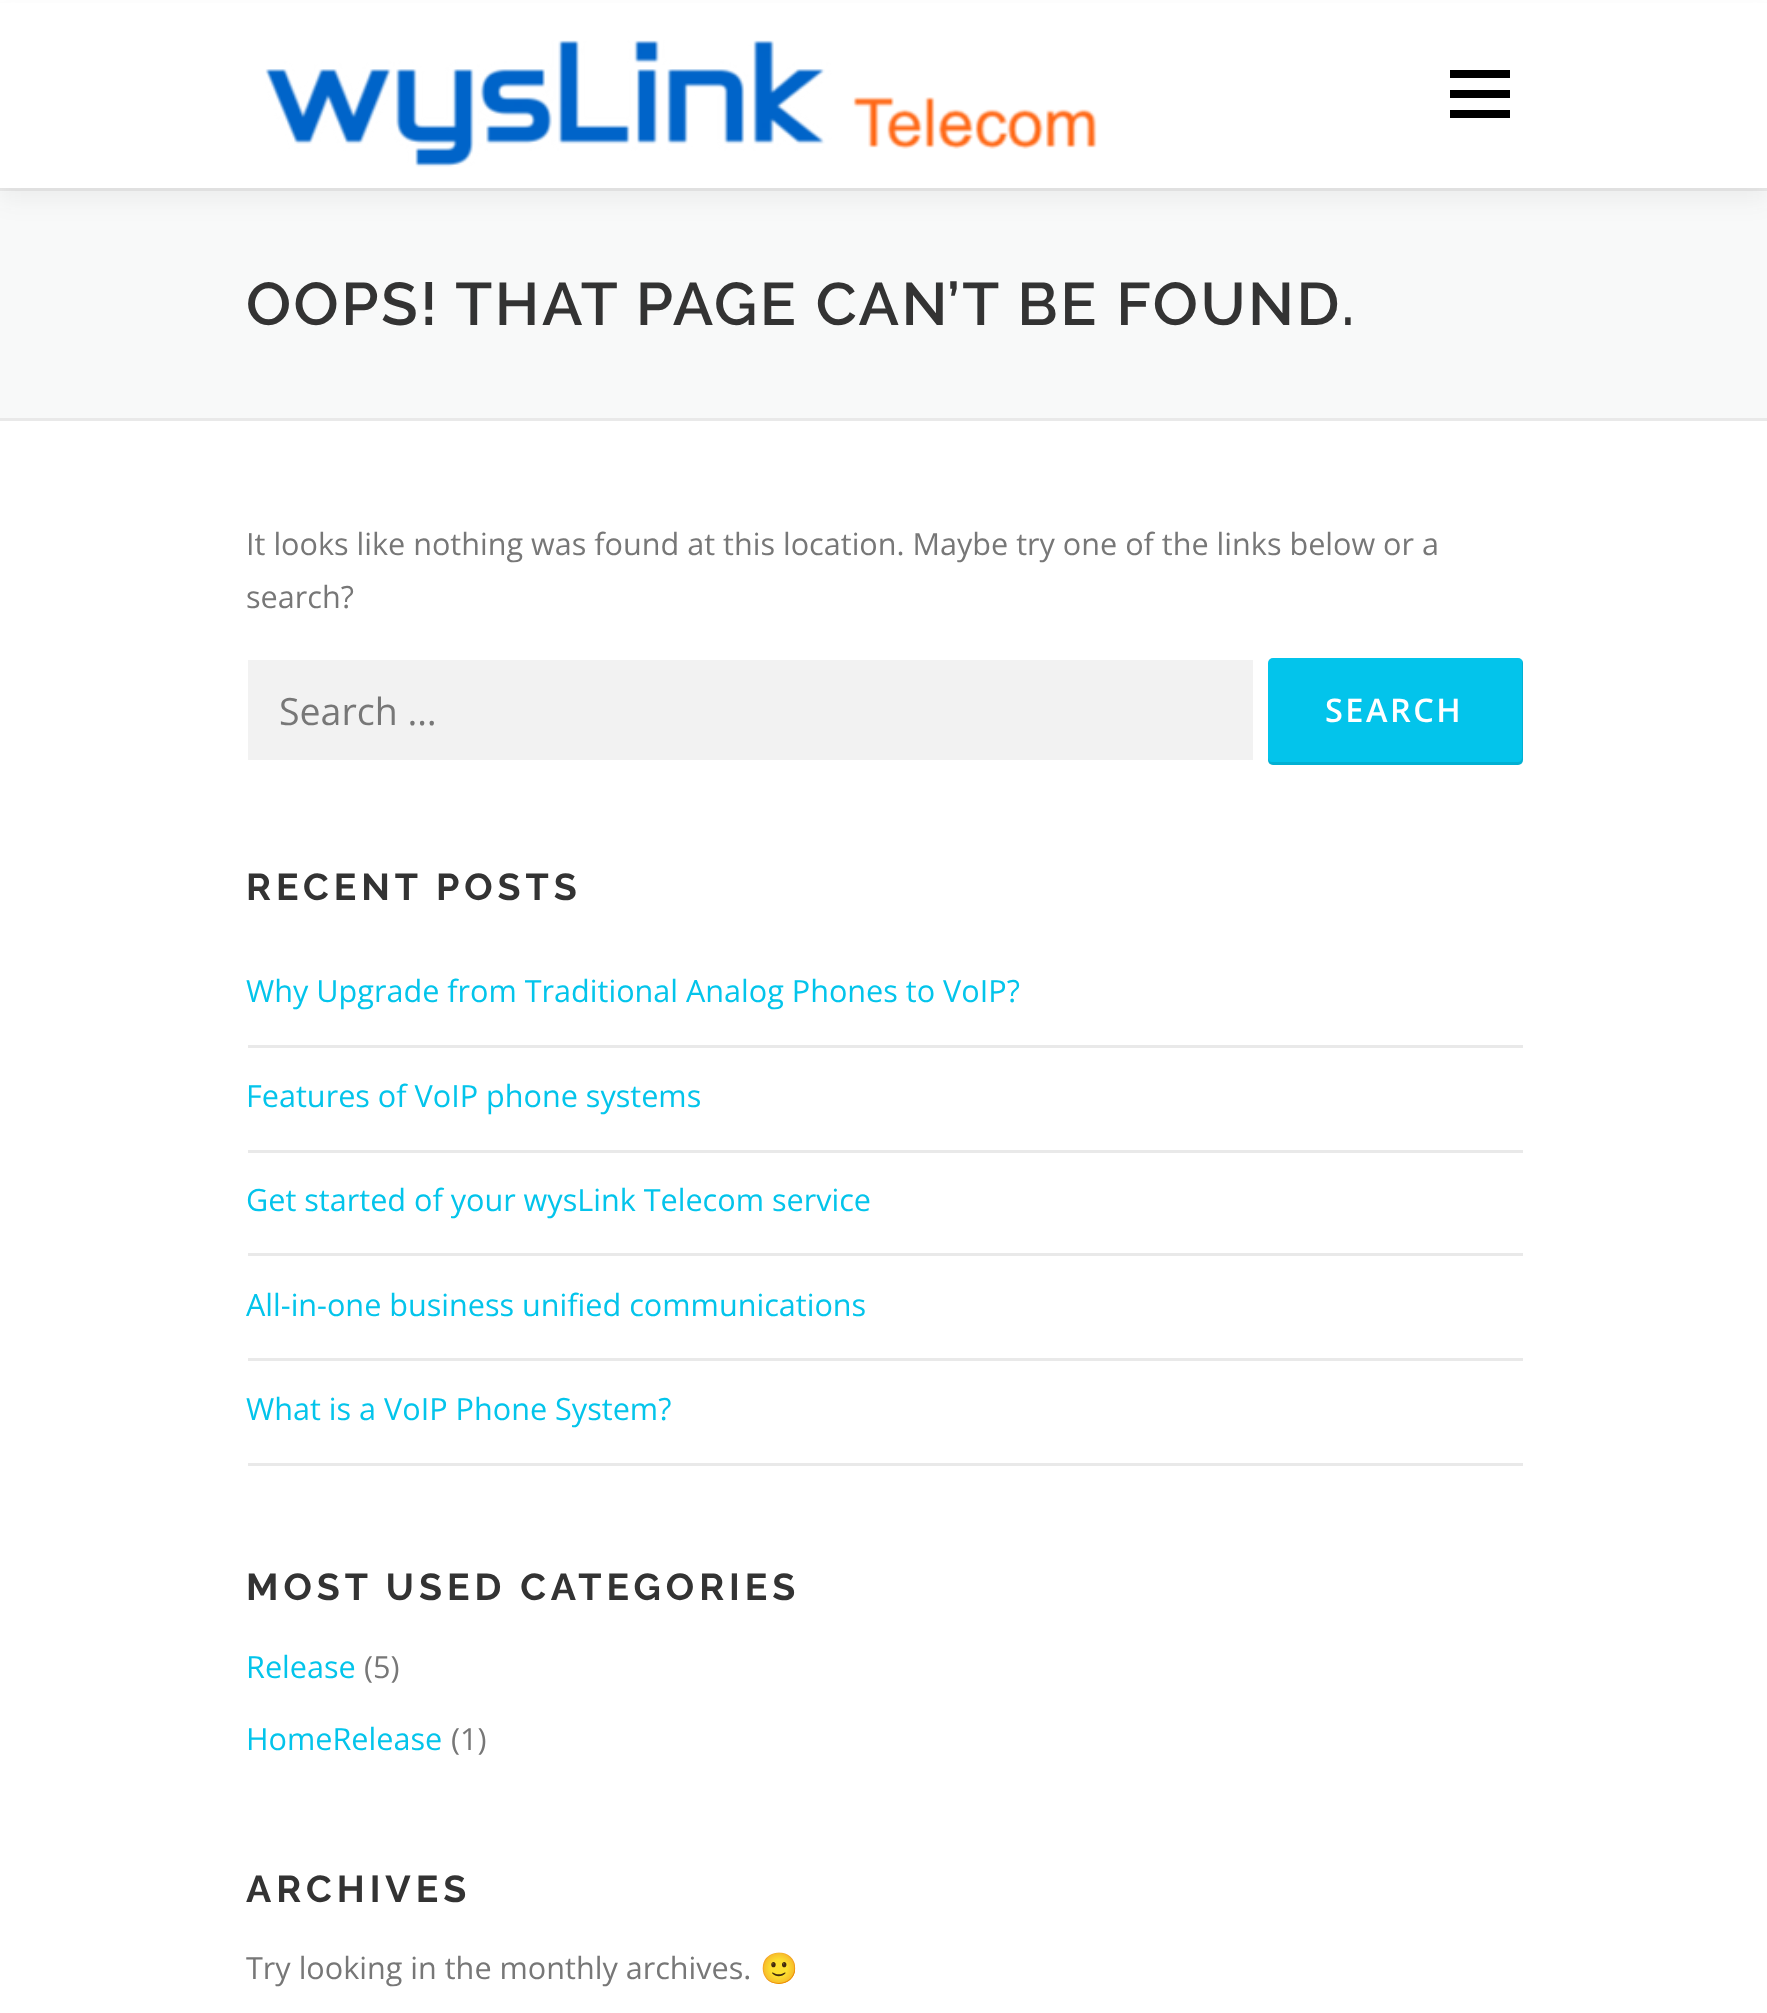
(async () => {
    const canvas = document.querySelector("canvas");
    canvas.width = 1767;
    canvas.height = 2013;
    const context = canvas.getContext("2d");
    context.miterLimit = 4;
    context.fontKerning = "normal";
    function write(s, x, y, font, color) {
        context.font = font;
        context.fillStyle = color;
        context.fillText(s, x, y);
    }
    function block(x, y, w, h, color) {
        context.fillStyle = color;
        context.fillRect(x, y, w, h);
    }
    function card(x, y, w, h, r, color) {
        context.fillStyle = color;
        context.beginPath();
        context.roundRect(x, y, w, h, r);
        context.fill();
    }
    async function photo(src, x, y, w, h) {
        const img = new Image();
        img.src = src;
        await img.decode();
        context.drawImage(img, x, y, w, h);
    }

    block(0, 0, 1767, 2013, "rgb(255, 255, 255)");
    block(0, 191, 1767, 227, "rgb(248, 249, 249)");
    block(0, 188, 1767, 3, "rgb(233, 233, 233)");
    context.fillStyle = "rgba(50, 50, 50, 0.06)";
    context.filter = "blur(12.5px)";
    context.beginPath();
    context.rect(0, 13, 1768, 187);
    context.fill();
    context.filter = "none";
    block(0, 3, 1767, 185, "rgb(255, 255, 255)");
    await photo("media/1.png", 265, 40, 832, 127);
    block(1450, 90, 60, 8, "rgb(0, 0, 0)");
    block(1450, 70, 60, 8, "rgb(0, 0, 0)");
    block(1450, 110, 60, 8, "rgb(0, 0, 0)");
    block(0, 418, 1767, 3, "rgb(233, 233, 233)");
    context.letterSpacing = "2.5px";
    write("OOPS! THAT PAGE CAN’T BE FOUND.", 246, 325, "600 60px Raleway", "rgb(51, 51, 51)");
    context.letterSpacing = "0px";
    write("It looks like nothing was found at this location. Maybe try one of the links below or a", 246, 555, "30.6px Open Sans", "rgb(119, 119, 119)");
    write("search?", 246, 608, "30.6px Open Sans", "rgb(119, 119, 119)");
    block(248, 660, 1005, 100, "rgb(242, 242, 242)");
    write("Search …", 279, 725, "37.5px Open Sans", "rgb(119, 119, 119)");
    card(1268, 658, 255, 107, 5, "rgb(3, 196, 235)");
    context.fillStyle = "rgba(0, 0, 0, 0.1)";
    context.beginPath();
    context.moveTo(1268, 758);
    context.lineTo(1268, 760);
    context.bezierCurveTo(1268, 763, 1270, 765, 1273, 765);
    context.lineTo(1518, 765);
    context.bezierCurveTo(1521, 765, 1523, 763, 1523, 760);
    context.lineTo(1523, 663);
    context.bezierCurveTo(1523, 662, 1523, 661, 1522, 660);
    context.lineTo(1522, 758);
    context.bezierCurveTo(1522, 760, 1520, 762, 1518, 762);
    context.lineTo(1272, 762);
    context.bezierCurveTo(1270, 762, 1268, 760, 1268, 758);
    context.closePath();
    context.fill();
    context.letterSpacing = "2.5px";
    write("SEARCH", 1325, 722, "600 32.5px Open Sans", "rgb(255, 255, 255)");
    context.letterSpacing = "5px";
    write("RECENT POSTS", 246, 900, "bold 37.5px Raleway", "rgb(51, 51, 51)");
    block(248, 1045, 1275, 3, "rgb(233, 233, 233)");
    context.letterSpacing = "0px";
    write("Why Upgrade from Traditional Analog Phones to VoIP?", 246, 1002, "30.6px Open Sans", "rgb(3, 196, 235)");
    block(248, 1150, 1275, 3, "rgb(233, 233, 233)");
    write("Features of VoIP phone systems", 246, 1107, "30.6px Open Sans", "rgb(3, 196, 235)");
    block(248, 1253, 1275, 3, "rgb(233, 233, 233)");
    write("Get started of your wysLink Telecom service", 246, 1211, "30.6px Open Sans", "rgb(3, 196, 235)");
    block(248, 1358, 1275, 3, "rgb(233, 233, 233)");
    write("All-in-one business unified communications", 246, 1316, "30.6px Open Sans", "rgb(3, 196, 235)");
    block(248, 1463, 1275, 3, "rgb(233, 233, 233)");
    write("What is a VoIP Phone System?", 246, 1420, "30.6px Open Sans", "rgb(3, 196, 235)");
    context.letterSpacing = "5px";
    write("MOST USED CATEGORIES", 246, 1600, "bold 37.5px Raleway", "rgb(51, 51, 51)");
    context.letterSpacing = "0px";
    write("Release", 246, 1678, "30.6px Open Sans", "rgb(3, 196, 235)");
    write("(5)", 364, 1678, "30.6px Open Sans", "rgb(119, 119, 119)");
    write("HomeRelease", 246, 1750, "30.6px Open Sans", "rgb(3, 196, 235)");
    write("(1)", 451, 1750, "30.6px Open Sans", "rgb(119, 119, 119)");
    context.letterSpacing = "5px";
    write("ARCHIVES", 246, 1902, "bold 37.5px Raleway", "rgb(51, 51, 51)");
    context.letterSpacing = "0px";
    write("Try looking in the monthly archives.", 246, 1979, "30.6px Open Sans", "rgb(119, 119, 119)");
    write("🙂", 760, 1979, "30.6px Noto Color Emoji", "rgb(119, 119, 119)");
})();
